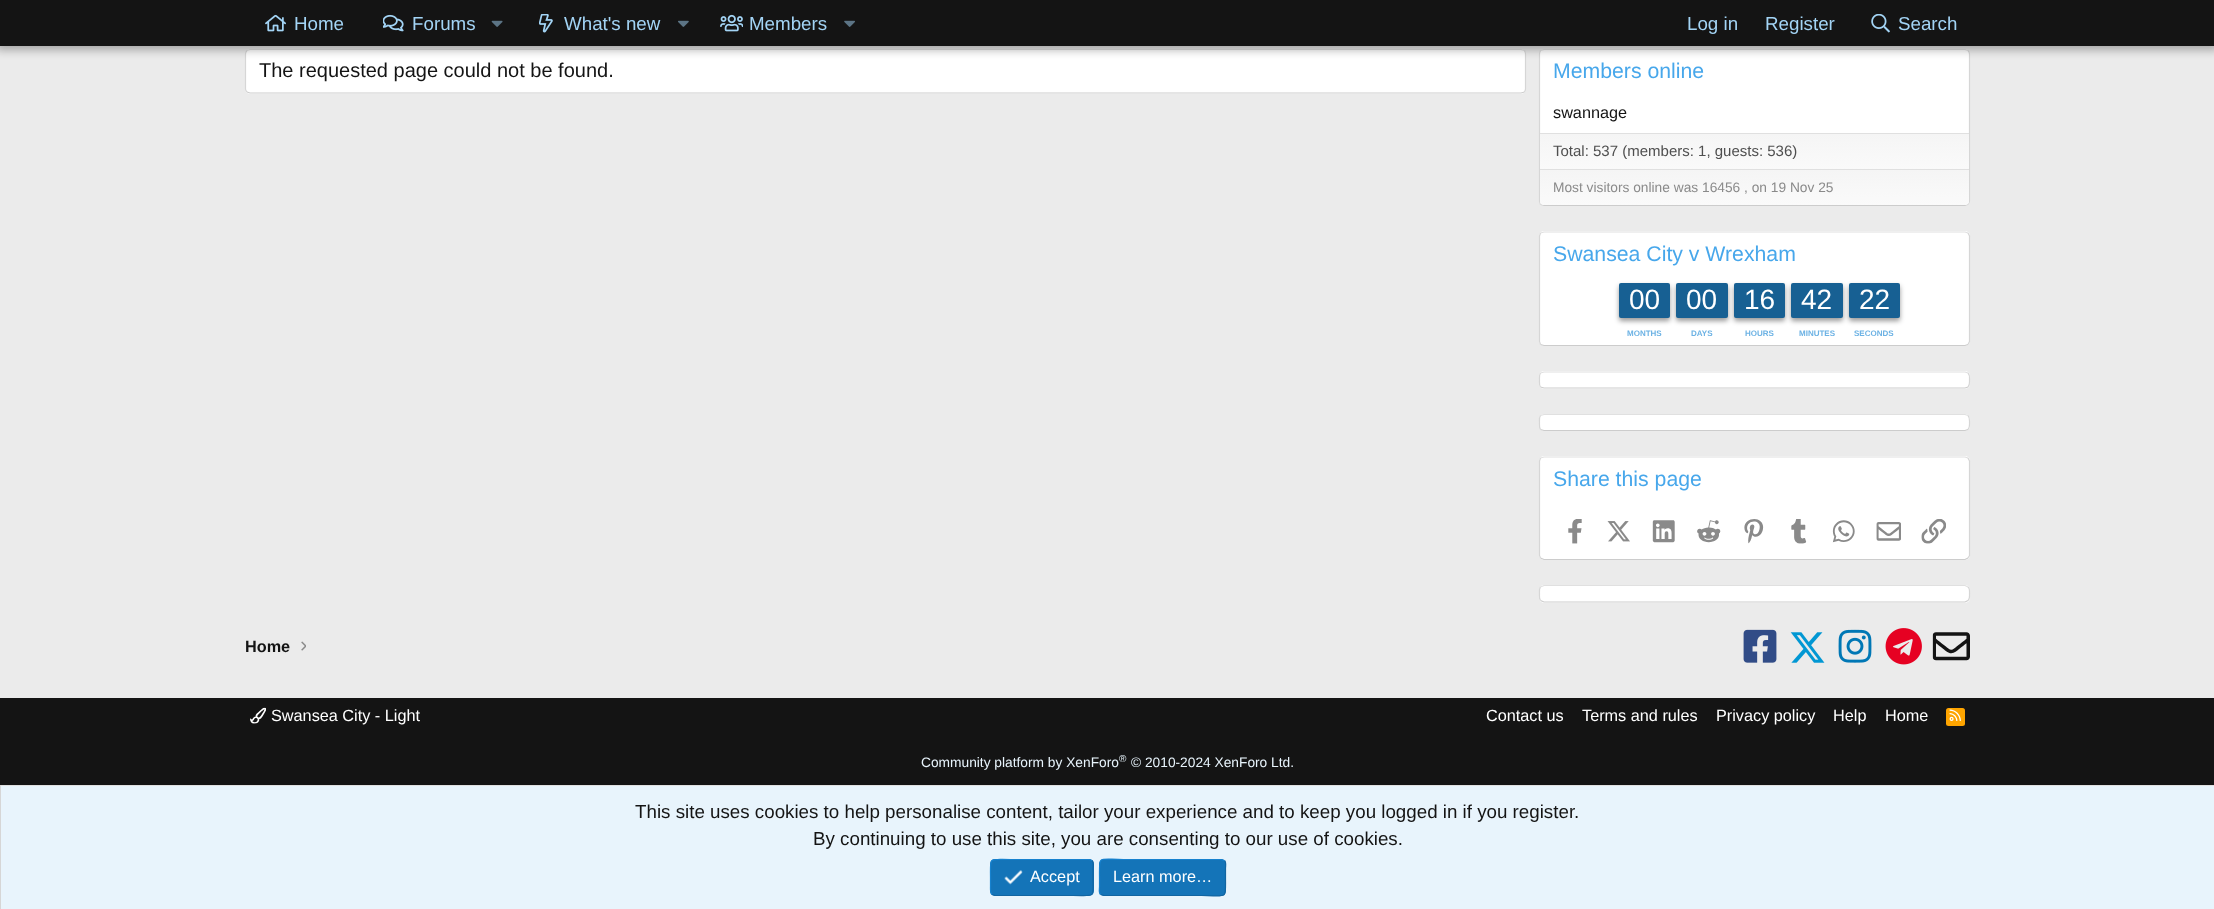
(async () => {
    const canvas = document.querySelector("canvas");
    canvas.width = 2214;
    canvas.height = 909;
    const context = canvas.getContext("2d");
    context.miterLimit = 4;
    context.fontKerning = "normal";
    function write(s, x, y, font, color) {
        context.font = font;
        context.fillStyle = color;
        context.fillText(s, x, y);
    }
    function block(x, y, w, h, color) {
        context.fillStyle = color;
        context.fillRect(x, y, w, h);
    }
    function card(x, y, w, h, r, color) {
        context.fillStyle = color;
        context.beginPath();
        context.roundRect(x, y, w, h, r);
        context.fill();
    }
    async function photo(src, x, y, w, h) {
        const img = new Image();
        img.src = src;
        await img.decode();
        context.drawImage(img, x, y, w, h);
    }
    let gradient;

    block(0, 0, 2214, 909, "rgb(235, 235, 235)");
    card(245, 49, 1281, 45, 5, "rgb(255, 255, 255)");
    context.beginPath();
    context.moveTo(247, 50.5);
    context.lineTo(250, 49.5);
    context.lineTo(1521, 49.5);
    context.lineTo(1524.5, 50.5);
    context.strokeStyle = "rgb(224, 224, 224)";
    context.lineWidth = 1.2;
    context.stroke();
    context.beginPath();
    context.moveTo(1524.5, 50.5);
    context.bezierCurveTo(1525, 51.5, 1525.5, 52.5, 1525.5, 54);
    context.lineTo(1525.5, 89);
    context.bezierCurveTo(1525.5, 90, 1525, 91, 1524.5, 92);
    context.strokeStyle = "rgb(214, 214, 214)";
    context.stroke();
    context.beginPath();
    context.moveTo(1524.5, 92);
    context.lineTo(1521, 93);
    context.lineTo(250, 93);
    context.lineTo(247, 92);
    context.strokeStyle = "rgb(204, 204, 204)";
    context.stroke();
    context.beginPath();
    context.moveTo(247, 92);
    context.bezierCurveTo(246, 91, 245.5, 90, 245.5, 89);
    context.lineTo(245.5, 54);
    context.bezierCurveTo(245.5, 52.5, 246, 51.5, 247, 50.5);
    context.strokeStyle = "rgb(214, 214, 214)";
    context.stroke();
    card(1539, 49, 431, 157, 5, "rgb(255, 255, 255)");
    context.beginPath();
    context.moveTo(1540.5, 50.5);
    context.lineTo(1544, 49.5);
    context.lineTo(1965, 49.5);
    context.lineTo(1968, 50.5);
    context.strokeStyle = "rgb(224, 224, 224)";
    context.stroke();
    context.beginPath();
    context.moveTo(1968, 50.5);
    context.bezierCurveTo(1969, 51.5, 1969.5, 52.5, 1969.5, 54);
    context.lineTo(1969.5, 201);
    context.bezierCurveTo(1969.5, 202.5, 1969, 203.5, 1968, 204.5);
    context.strokeStyle = "rgb(214, 214, 214)";
    context.stroke();
    context.beginPath();
    context.moveTo(1968, 204.5);
    context.lineTo(1965, 205.5);
    context.lineTo(1544, 205.5);
    context.lineTo(1540.5, 204.5);
    context.strokeStyle = "rgb(204, 204, 204)";
    context.stroke();
    context.beginPath();
    context.moveTo(1540.5, 204.5);
    context.bezierCurveTo(1540, 203.5, 1539.5, 202.5, 1539.5, 201);
    context.lineTo(1539.5, 54);
    context.bezierCurveTo(1539.5, 52.5, 1540, 51.5, 1540.5, 50.5);
    context.strokeStyle = "rgb(214, 214, 214)";
    context.stroke();
    context.fillStyle = "rgba(0, 0, 0, 0.3)";
    context.filter = "blur(5px)";
    context.beginPath();
    context.rect(-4, -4, 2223, 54);
    context.fill();
    context.filter = "none";
    block(0, 0, 2214, 46, "rgb(20, 20, 20)");
    await photo("media/1.png", 265, 14, 21, 18);
    write("Home", 294, 30, "18.75px Liberation Sans", "rgb(163, 212, 245)");
    await photo("media/2.png", 383, 14, 21, 18);
    write("Forums", 412, 30, "18.75px Liberation Sans", "rgb(163, 212, 245)");
    await photo("media/3.png", 491, 20, 12, 7);
    await photo("media/4.png", 539, 14, 14, 19);
    write("What's new", 564, 30, "18.75px Liberation Sans", "rgb(163, 212, 245)");
    await photo("media/5.png", 678, 20, 11, 7);
    await photo("media/6.png", 720, 14, 23, 18);
    write("Members", 749, 30, "18.75px Liberation Sans", "rgb(163, 212, 245)");
    await photo("media/7.png", 844, 20, 11, 7);
    write("Log in", 1687, 30, "18.75px Liberation Sans", "rgb(163, 212, 245)");
    write("Register", 1765, 30, "18.75px Liberation Sans", "rgb(163, 212, 245)");
    await photo("media/8.png", 1871, 14, 19, 19);
    write("Search", 1898, 30, "18.75px Liberation Sans", "rgb(163, 212, 245)");
    write("The requested page could not be found.", 259, 77, "20px Liberation Sans", "rgb(20, 20, 20)");
    write("Members online", 1553, 78, "21.25px Liberation Sans", "rgb(71, 167, 235)");
    write("swannage", 1553, 118, "16.25px Liberation Sans", "rgb(20, 20, 20)");
    gradient = context.createLinearGradient(1754, 134, 1754, 169);
    gradient.addColorStop(0, "rgb(245, 245, 245)");
    gradient.addColorStop(1, "rgb(250, 250, 250)");
    context.fillStyle = gradient;
    context.fillRect(1540, 134, 429, 35);
    block(1540, 133, 429, 1, "rgb(224, 224, 224)");
    write("Total: 537 (members: 1, guests: 536)", 1553, 156, "15px Liberation Sans", "rgb(79, 79, 79)");
    gradient = context.createLinearGradient(1754, 170, 1754, 205);
    gradient.addColorStop(0, "rgb(245, 245, 245)");
    gradient.addColorStop(1, "rgb(250, 250, 250)");
    context.fillStyle = gradient;
    context.beginPath();
    context.roundRect(1540, 170, 429, 35, [0, 0, 4, 4]);
    context.fill();
    block(1540, 169, 429, 1, "rgb(224, 224, 224)");
    write("Most visitors online was 16456 , on 19 Nov 25", 1553, 192, "13.75px Liberation Sans", "rgb(138, 138, 138)");
    card(1539, 231, 431, 115, 5, "rgb(255, 255, 255)");
    context.beginPath();
    context.moveTo(1540.5, 233);
    context.lineTo(1544, 232);
    context.lineTo(1965, 232);
    context.lineTo(1968, 233);
    context.strokeStyle = "rgb(224, 224, 224)";
    context.stroke();
    context.beginPath();
    context.moveTo(1968, 233);
    context.lineTo(1969.5, 236);
    context.lineTo(1969.5, 341.5);
    context.lineTo(1968, 344.5);
    context.strokeStyle = "rgb(214, 214, 214)";
    context.stroke();
    context.beginPath();
    context.moveTo(1968, 344.5);
    context.lineTo(1965, 345.5);
    context.lineTo(1544, 345.5);
    context.lineTo(1540.5, 344.5);
    context.strokeStyle = "rgb(204, 204, 204)";
    context.stroke();
    context.beginPath();
    context.moveTo(1540.5, 344.5);
    context.lineTo(1539.5, 341.5);
    context.lineTo(1539.5, 236);
    context.lineTo(1540.5, 233);
    context.strokeStyle = "rgb(214, 214, 214)";
    context.stroke();
    write("Swansea City v Wrexham", 1553, 261, "21.25px Liberation Sans", "rgb(71, 167, 235)");
    context.fillStyle = "rgba(0, 0, 0, 0.4)";
    context.filter = "blur(2.5px)";
    context.beginPath();
    context.roundRect(1619, 286, 51, 35, 2);
    context.fill();
    context.filter = "none";
    card(1619, 283, 51, 35, 2, "rgb(23, 96, 147)");
    write("00", 1629, 309, "28px Liberation Sans", "rgb(255, 255, 255)");
    context.fillStyle = "rgba(0, 0, 0, 0.4)";
    context.filter = "blur(2.5px)";
    context.beginPath();
    context.roundRect(1676, 286, 52, 35, 2);
    context.fill();
    context.filter = "none";
    card(1676, 283, 52, 35, 2, "rgb(23, 96, 147)");
    write("00", 1686, 309, "28px Liberation Sans", "rgb(255, 255, 255)");
    context.fillStyle = "rgba(0, 0, 0, 0.4)";
    context.filter = "blur(2.5px)";
    context.beginPath();
    context.roundRect(1734, 286, 51, 35, 2);
    context.fill();
    context.filter = "none";
    card(1734, 283, 51, 35, 2, "rgb(23, 96, 147)");
    write("16", 1744, 309, "28px Liberation Sans", "rgb(255, 255, 255)");
    context.fillStyle = "rgba(0, 0, 0, 0.4)";
    context.filter = "blur(2.5px)";
    context.beginPath();
    context.roundRect(1791, 286, 52, 35, 2);
    context.fill();
    context.filter = "none";
    card(1791, 283, 52, 35, 2, "rgb(23, 96, 147)");
    write("42", 1801, 309, "28px Liberation Sans", "rgb(255, 255, 255)");
    context.fillStyle = "rgba(0, 0, 0, 0.4)";
    context.filter = "blur(2.5px)";
    context.beginPath();
    context.roundRect(1849, 286, 51, 35, 2);
    context.fill();
    context.filter = "none";
    card(1849, 283, 51, 35, 2, "rgb(23, 96, 147)");
    write("22", 1859, 309, "28px Liberation Sans", "rgb(255, 255, 255)");
    write("MONTHS", 1627, 336, "bold 8px Liberation Sans", "rgb(108, 178, 228)");
    write("DAYS", 1691, 336, "bold 8px Liberation Sans", "rgb(108, 178, 228)");
    write("HOURS", 1745, 336, "bold 8px Liberation Sans", "rgb(108, 178, 228)");
    write("MINUTES", 1799, 336, "bold 8px Liberation Sans", "rgb(108, 178, 228)");
    write("SECONDS", 1854, 336, "bold 8px Liberation Sans", "rgb(108, 178, 228)");
    card(1539, 371, 431, 18, 5, "rgb(255, 255, 255)");
    context.beginPath();
    context.moveTo(1540.5, 373);
    context.lineTo(1544, 372);
    context.lineTo(1965, 372);
    context.lineTo(1968, 373);
    context.strokeStyle = "rgb(224, 224, 224)";
    context.stroke();
    context.beginPath();
    context.moveTo(1968, 373);
    context.bezierCurveTo(1970, 375, 1969.5, 377.5, 1969.5, 380);
    context.bezierCurveTo(1969.5, 382.5, 1970, 385, 1968, 387);
    context.strokeStyle = "rgb(214, 214, 214)";
    context.stroke();
    context.beginPath();
    context.moveTo(1968, 387);
    context.lineTo(1965, 388);
    context.lineTo(1544, 388);
    context.lineTo(1540.5, 387);
    context.strokeStyle = "rgb(204, 204, 204)";
    context.stroke();
    context.beginPath();
    context.moveTo(1540.5, 387);
    context.bezierCurveTo(1539, 385, 1539.5, 382.5, 1539.5, 380);
    context.bezierCurveTo(1539.5, 377.5, 1539, 375, 1540.5, 373);
    context.strokeStyle = "rgb(214, 214, 214)";
    context.stroke();
    card(1539, 414, 431, 17, 5, "rgb(255, 255, 255)");
    context.beginPath();
    context.moveTo(1540.5, 415.5);
    context.lineTo(1544, 414.5);
    context.lineTo(1965, 414.5);
    context.lineTo(1968, 415.5);
    context.strokeStyle = "rgb(224, 224, 224)";
    context.stroke();
    context.beginPath();
    context.moveTo(1968, 415.5);
    context.bezierCurveTo(1970, 417.5, 1969.5, 420, 1969.5, 422.5);
    context.bezierCurveTo(1969.5, 425, 1970, 427.5, 1968, 429.5);
    context.strokeStyle = "rgb(214, 214, 214)";
    context.stroke();
    context.beginPath();
    context.moveTo(1968, 429.5);
    context.lineTo(1965, 430.5);
    context.lineTo(1544, 430.5);
    context.lineTo(1540.5, 429.5);
    context.strokeStyle = "rgb(204, 204, 204)";
    context.stroke();
    context.beginPath();
    context.moveTo(1540.5, 429.5);
    context.bezierCurveTo(1539, 427.5, 1539.5, 425, 1539.5, 422.5);
    context.bezierCurveTo(1539.5, 420, 1539, 417.5, 1540.5, 415.5);
    context.strokeStyle = "rgb(214, 214, 214)";
    context.stroke();
    card(1539, 456, 431, 104, 5, "rgb(255, 255, 255)");
    context.beginPath();
    context.moveTo(1540.5, 458);
    context.lineTo(1544, 457);
    context.lineTo(1965, 457);
    context.lineTo(1968, 458);
    context.strokeStyle = "rgb(224, 224, 224)";
    context.stroke();
    context.beginPath();
    context.moveTo(1968, 458);
    context.lineTo(1969.5, 461);
    context.lineTo(1969.5, 555.5);
    context.lineTo(1968, 558);
    context.strokeStyle = "rgb(214, 214, 214)";
    context.stroke();
    context.beginPath();
    context.moveTo(1968, 558);
    context.lineTo(1965, 559.5);
    context.lineTo(1544, 559.5);
    context.lineTo(1540.5, 558);
    context.strokeStyle = "rgb(204, 204, 204)";
    context.stroke();
    context.beginPath();
    context.moveTo(1540.5, 558);
    context.lineTo(1539.5, 555.5);
    context.lineTo(1539.5, 461);
    context.lineTo(1540.5, 458);
    context.strokeStyle = "rgb(214, 214, 214)";
    context.stroke();
    write("Share this page", 1553, 486, "21.25px Liberation Sans", "rgb(71, 167, 235)");
    await photo("media/9.png", 1568, 519, 14, 25);
    await photo("media/10.png", 1607, 521, 23, 21);
    await photo("media/11.png", 1652, 520, 23, 23);
    await photo("media/12.png", 1697, 520, 24, 23);
    await photo("media/13.png", 1744, 519, 20, 25);
    await photo("media/14.png", 1791, 519, 16, 25);
    await photo("media/15.png", 1832, 520, 23, 23);
    await photo("media/16.png", 1876, 522, 25, 19);
    await photo("media/17.png", 1921, 519, 25, 25);
    card(1539, 585, 431, 18, 5, "rgb(255, 255, 255)");
    context.beginPath();
    context.moveTo(1540.5, 587);
    context.lineTo(1544, 585.5);
    context.lineTo(1965, 585.5);
    context.lineTo(1968, 587);
    context.strokeStyle = "rgb(224, 224, 224)";
    context.stroke();
    context.beginPath();
    context.moveTo(1968, 587);
    context.bezierCurveTo(1970, 588.5, 1969.5, 591.5, 1969.5, 594);
    context.bezierCurveTo(1969.5, 596, 1970, 599, 1968, 600.5);
    context.strokeStyle = "rgb(214, 214, 214)";
    context.stroke();
    context.beginPath();
    context.moveTo(1968, 600.5);
    context.lineTo(1965, 602);
    context.lineTo(1544, 602);
    context.lineTo(1540.5, 600.5);
    context.strokeStyle = "rgb(204, 204, 204)";
    context.stroke();
    context.beginPath();
    context.moveTo(1540.5, 600.5);
    context.bezierCurveTo(1539, 599, 1539.5, 596, 1539.5, 594);
    context.bezierCurveTo(1539.5, 591.5, 1539, 588.5, 1540.5, 587);
    context.strokeStyle = "rgb(214, 214, 214)";
    context.stroke();
    write("Home", 245, 652, "bold 16.25px Liberation Sans", "rgb(20, 20, 20)");
    await photo("media/18.png", 301, 641, 5, 10);
    await photo("media/19.png", 1743, 629, 34, 34);
    await photo("media/20.png", 1790, 632, 35, 31);
    await photo("media/21.png", 1838, 629, 34, 34);
    await photo("media/22.png", 1885, 628, 37, 37);
    await photo("media/23.png", 1932, 632, 38, 29);
    block(0, 698, 2214, 87, "rgb(20, 20, 20)");
    await photo("media/24.png", 250, 707, 16, 17);
    write("Swansea City - Light", 271, 721, "16.25px Liberation Sans", "rgb(255, 255, 255)");
    write("Contact us", 1486, 721, "16.25px Liberation Sans", "rgb(255, 255, 255)");
    write("Terms and rules", 1582, 721, "16.25px Liberation Sans", "rgb(255, 255, 255)");
    write("Privacy policy", 1716, 721, "16.25px Liberation Sans", "rgb(255, 255, 255)");
    write("Help", 1833, 721, "16.25px Liberation Sans", "rgb(255, 255, 255)");
    write("Home", 1885, 721, "16.25px Liberation Sans", "rgb(255, 255, 255)");
    card(1946, 708, 19, 18, 2.5, "rgb(255, 165, 0)");
    await photo("media/25.png", 1949, 709, 12, 12);
    write("Community platform by XenForo", 921, 767, "13.75px Liberation Sans", "rgb(232, 244, 252)");
    write("®", 1119, 762, "10px Liberation Sans", "rgb(232, 244, 252)");
    write("© 2010-2024 XenForo Ltd.", 1131, 767, "13.75px Liberation Sans", "rgb(232, 244, 252)");
    block(1, 786, 2213, 123, "rgb(232, 244, 252)");
    block(0, 785, 2214, 1, "rgb(224, 224, 224)");
    block(0, 785, 1, 124, "rgb(214, 214, 214)");
    write("This site uses cookies to help personalise content, tailor your experience and to keep you logged in if you register.", 635, 818, "18.75px Liberation Sans", "rgb(20, 20, 20)");
    write("By continuing to use this site, you are consenting to our use of cookies.", 813, 845, "18.75px Liberation Sans", "rgb(20, 20, 20)");
    card(990, 859, 104, 37, 5, "rgb(20, 116, 184)");
    context.beginPath();
    context.moveTo(1092, 860.5);
    context.bezierCurveTo(1094, 862.5, 1093, 866, 1093, 868.5);
    context.lineTo(1093, 877.5);
    context.bezierCurveTo(1093, 899, 1096, 895.5, 1073, 895.5);
    context.lineTo(995, 895.5);
    context.lineTo(992, 894.5);
    context.strokeStyle = "rgb(18, 101, 161)";
    context.stroke();
    context.beginPath();
    context.moveTo(992, 894.5);
    context.bezierCurveTo(990, 892.5, 990.5, 889, 990.5, 886.5);
    context.lineTo(990.5, 877.5);
    context.bezierCurveTo(990.5, 856, 988, 859.5, 1010.5, 859.5);
    context.lineTo(1089, 859.5);
    context.lineTo(1092, 860.5);
    context.strokeStyle = "rgb(23, 130, 207)";
    context.stroke();
    await photo("media/26.png", 1004, 870, 19, 15);
    write("Accept", 1030, 882, "16.25px Liberation Sans", "rgb(255, 255, 255)");
    card(1099, 859, 127, 37, 5, "rgb(20, 116, 184)");
    context.beginPath();
    context.moveTo(1224.5, 860.5);
    context.bezierCurveTo(1226.5, 862.5, 1225.5, 866, 1225.5, 868.5);
    context.lineTo(1225.5, 877.5);
    context.bezierCurveTo(1225.5, 900.5, 1228, 895.5, 1201.5, 895.5);
    context.lineTo(1104, 895.5);
    context.lineTo(1100.5, 894.5);
    context.strokeStyle = "rgb(18, 101, 161)";
    context.stroke();
    context.beginPath();
    context.moveTo(1100.5, 894.5);
    context.bezierCurveTo(1098.5, 892.5, 1099.5, 889, 1099.5, 886.5);
    context.lineTo(1099.5, 877.5);
    context.bezierCurveTo(1099.5, 854.5, 1097, 859.5, 1123.5, 859.5);
    context.lineTo(1221, 859.5);
    context.lineTo(1224.5, 860.5);
    context.strokeStyle = "rgb(23, 130, 207)";
    context.stroke();
    write("Learn more…", 1113, 882, "16.25px Liberation Sans", "rgb(255, 255, 255)");
})();
